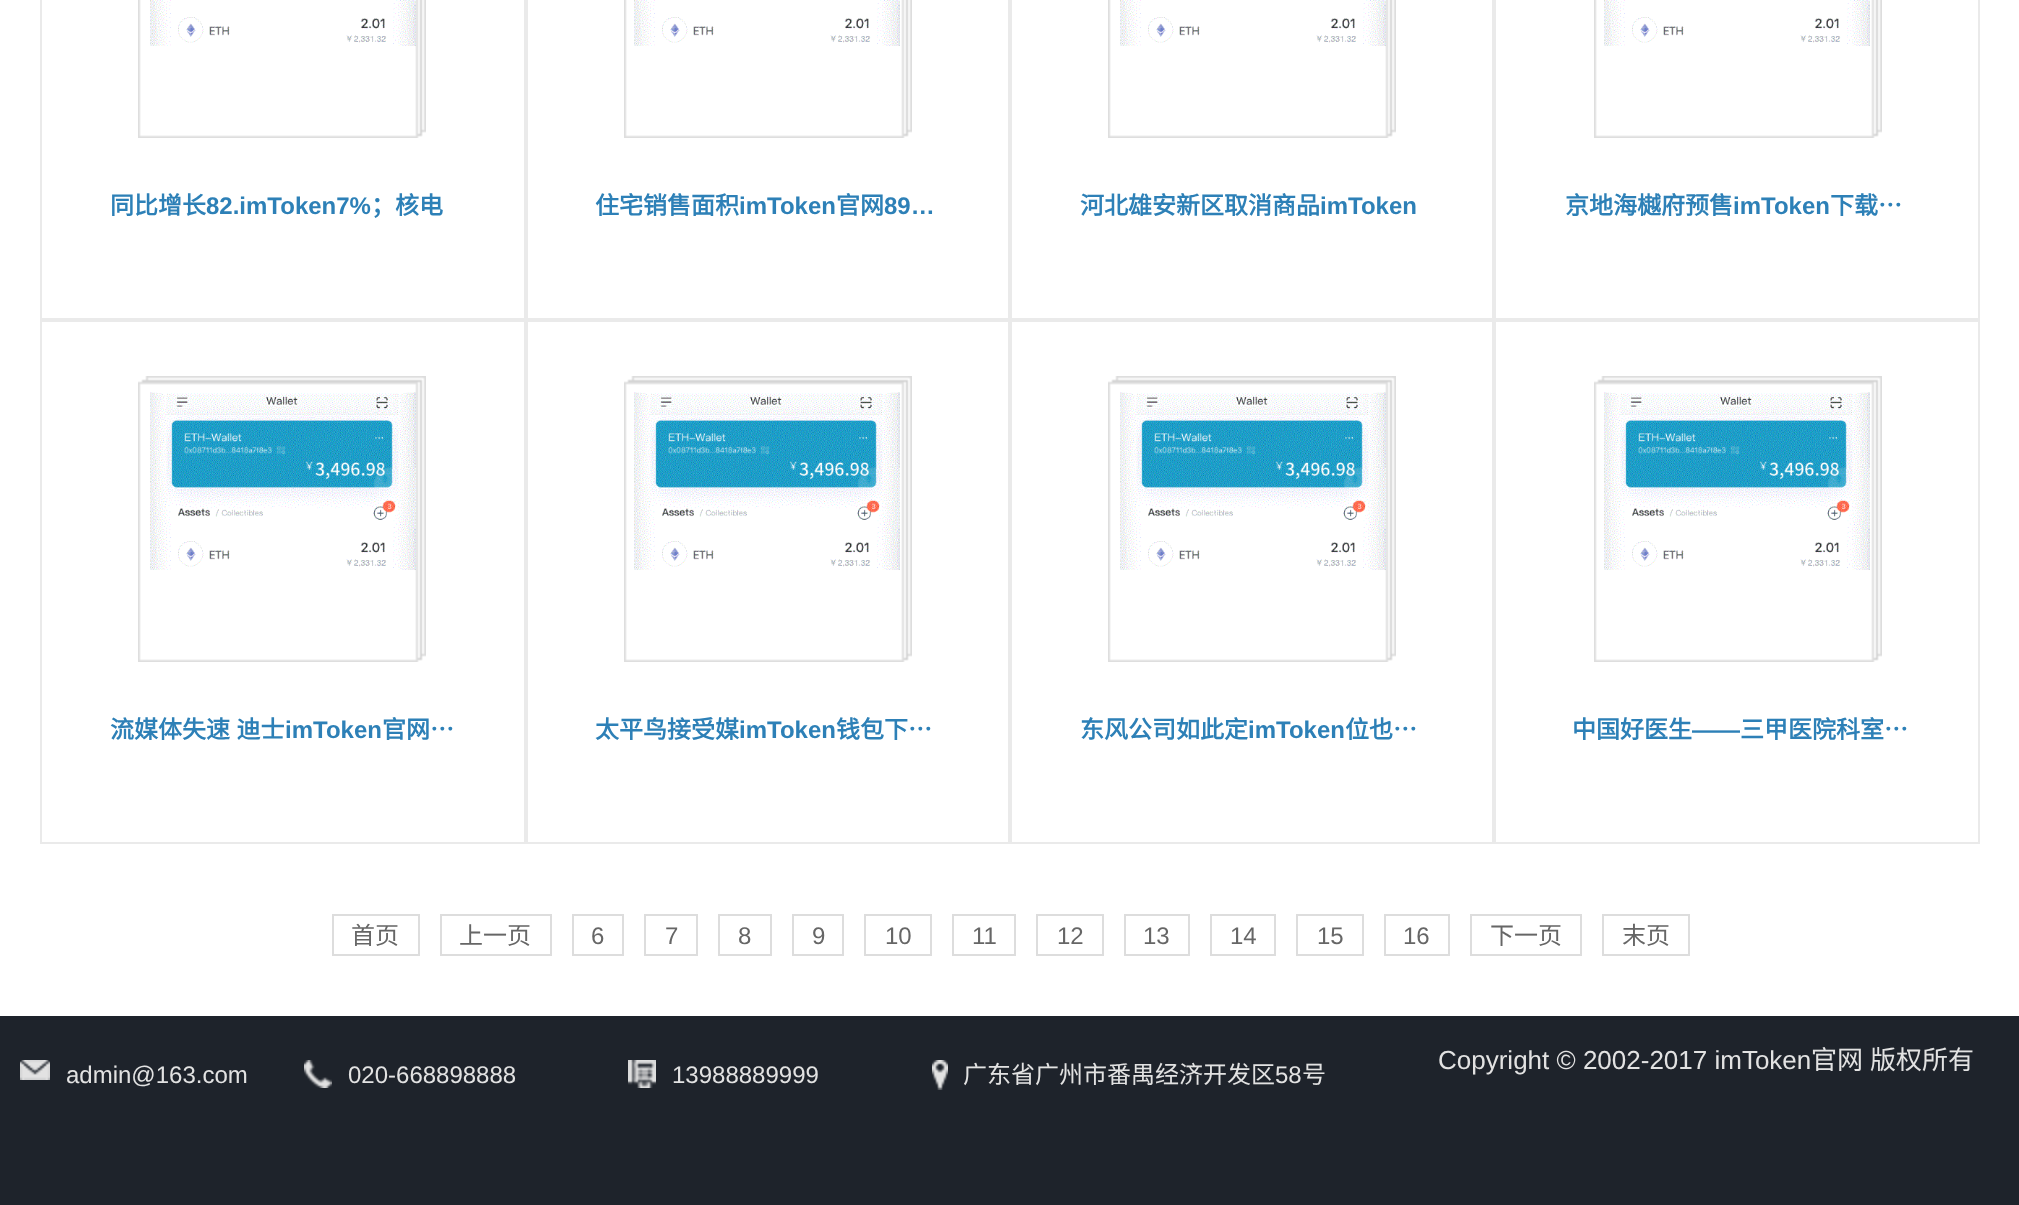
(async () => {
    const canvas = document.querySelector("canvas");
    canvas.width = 2019;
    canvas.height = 1205;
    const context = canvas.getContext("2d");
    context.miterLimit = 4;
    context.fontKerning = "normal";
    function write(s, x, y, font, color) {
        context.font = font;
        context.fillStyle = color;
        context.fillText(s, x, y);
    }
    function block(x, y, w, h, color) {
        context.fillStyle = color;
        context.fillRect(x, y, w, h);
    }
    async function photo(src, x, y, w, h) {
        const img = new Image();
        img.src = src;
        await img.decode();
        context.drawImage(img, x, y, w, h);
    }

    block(0, 0, 2019, 1205, "rgb(255, 255, 255)");
    context.strokeStyle = "rgb(234, 234, 234)";
    context.lineWidth = 2;
    context.strokeRect(41, -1, 484, 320);
    await photo("media/1.png", 138, 0, 288, 138);
    await photo("media/2.png", 150, 0, 266, 46);
    write("同比增长", 110, 214, "bold 24px Noto Sans CJK SC", "rgb(45, 128, 183)");
    write("82.imToken7%", 206, 214, "bold 24px Liberation Sans", "rgb(45, 128, 183)");
    write("；核电", 371, 214, "bold 24px Noto Sans CJK SC", "rgb(45, 128, 183)");
    context.strokeRect(527, -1, 482, 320);
    await photo("media/1.png", 624, 0, 288, 138);
    await photo("media/2.png", 634, 0, 266, 46);
    write("住宅销售面积", 595, 214, "bold 24px Noto Sans CJK SC", "rgb(45, 128, 183)");
    write("imToken", 739, 214, "bold 24px Liberation Sans", "rgb(45, 128, 183)");
    write("官网", 836, 214, "bold 24px Noto Sans CJK SC", "rgb(45, 128, 183)");
    write("89…", 884, 214, "bold 24px Liberation Sans", "rgb(45, 128, 183)");
    context.strokeRect(1011, -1, 482, 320);
    await photo("media/1.png", 1108, 0, 288, 138);
    await photo("media/2.png", 1120, 0, 266, 46);
    write("河北雄安新区取消商品", 1080, 214, "bold 24px Noto Sans CJK SC", "rgb(45, 128, 183)");
    write("imToken", 1320, 214, "bold 24px Liberation Sans", "rgb(45, 128, 183)");
    context.strokeRect(1495, -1, 484, 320);
    await photo("media/1.png", 1594, 0, 288, 138);
    await photo("media/2.png", 1604, 0, 266, 46);
    write("京地海樾府预售", 1565, 214, "bold 24px Noto Sans CJK SC", "rgb(45, 128, 183)");
    write("imToken", 1733, 214, "bold 24px Liberation Sans", "rgb(45, 128, 183)");
    write("下载…", 1830, 214, "bold 24px Noto Sans CJK SC", "rgb(45, 128, 183)");
    context.strokeRect(41, 321, 484, 522);
    await photo("media/3.png", 138, 376, 288, 286);
    await photo("media/4.png", 150, 392, 266, 178);
    context.wordSpacing = "1px";
    write("流媒体失速 迪士", 110, 738, "bold 24px Noto Sans CJK SC", "rgb(45, 128, 183)");
    context.wordSpacing = "0px";
    write("imToken", 285, 738, "bold 24px Liberation Sans", "rgb(45, 128, 183)");
    write("官网…", 382, 738, "bold 24px Noto Sans CJK SC", "rgb(45, 128, 183)");
    context.strokeRect(527, 321, 482, 522);
    await photo("media/3.png", 624, 376, 288, 286);
    await photo("media/4.png", 634, 392, 266, 178);
    write("太平鸟接受媒", 595, 738, "bold 24px Noto Sans CJK SC", "rgb(45, 128, 183)");
    write("imToken", 739, 738, "bold 24px Liberation Sans", "rgb(45, 128, 183)");
    write("钱包下…", 836, 738, "bold 24px Noto Sans CJK SC", "rgb(45, 128, 183)");
    context.strokeRect(1011, 321, 482, 522);
    await photo("media/3.png", 1108, 376, 288, 286);
    await photo("media/4.png", 1120, 392, 266, 178);
    write("东风公司如此定", 1080, 738, "bold 24px Noto Sans CJK SC", "rgb(45, 128, 183)");
    write("imToken", 1248, 738, "bold 24px Liberation Sans", "rgb(45, 128, 183)");
    write("位也…", 1345, 738, "bold 24px Noto Sans CJK SC", "rgb(45, 128, 183)");
    context.strokeRect(1495, 321, 484, 522);
    await photo("media/3.png", 1594, 376, 288, 286);
    await photo("media/4.png", 1604, 392, 266, 178);
    write("中国好医生", 1572, 738, "bold 24px Noto Sans CJK SC", "rgb(45, 128, 183)");
    write("——", 1692, 738, "bold 24px Liberation Sans", "rgb(45, 128, 183)");
    context.wordSpacing = "1px";
    write("三甲医院科室…", 1740, 738, "bold 24px Noto Sans CJK SC", "rgb(45, 128, 183)");
    context.strokeStyle = "rgb(221, 221, 221)";
    context.strokeRect(333, 915, 86, 40);
    context.wordSpacing = "0px";
    write("首页", 351, 944, "24px Noto Sans CJK SC", "rgb(102, 102, 102)");
    context.strokeRect(441, 915, 110, 40);
    write("上一页", 459, 944, "24px Noto Sans CJK SC", "rgb(102, 102, 102)");
    context.strokeRect(573, 915, 50, 40);
    write("6", 591, 944, "24px Liberation Sans", "rgb(102, 102, 102)");
    context.strokeRect(645, 915, 52, 40);
    write("7", 665, 944, "24px Liberation Sans", "rgb(102, 102, 102)");
    context.strokeRect(719, 915, 52, 40);
    write("8", 738, 944, "24px Liberation Sans", "rgb(102, 102, 102)");
    context.strokeRect(793, 915, 50, 40);
    write("9", 812, 944, "24px Liberation Sans", "rgb(102, 102, 102)");
    context.strokeRect(865, 915, 66, 40);
    write("10", 885, 944, "24px Liberation Sans", "rgb(102, 102, 102)");
    context.strokeRect(953, 915, 62, 40);
    write("11", 972, 944, "24px Liberation Sans", "rgb(102, 102, 102)");
    context.strokeRect(1037, 915, 66, 40);
    write("12", 1057, 944, "24px Liberation Sans", "rgb(102, 102, 102)");
    context.strokeRect(1125, 915, 64, 40);
    write("13", 1143, 944, "24px Liberation Sans", "rgb(102, 102, 102)");
    context.strokeRect(1211, 915, 64, 40);
    write("14", 1230, 944, "24px Liberation Sans", "rgb(102, 102, 102)");
    context.strokeRect(1297, 915, 66, 40);
    write("15", 1317, 944, "24px Liberation Sans", "rgb(102, 102, 102)");
    context.strokeRect(1385, 915, 64, 40);
    write("16", 1403, 944, "24px Liberation Sans", "rgb(102, 102, 102)");
    context.strokeRect(1471, 915, 110, 40);
    write("下一页", 1490, 944, "24px Noto Sans CJK SC", "rgb(102, 102, 102)");
    context.strokeRect(1603, 915, 86, 40);
    write("末页", 1622, 944, "24px Noto Sans CJK SC", "rgb(102, 102, 102)");
    block(0, 1016, 2019, 189, "rgb(30, 35, 43)");
    await photo("media/5.png", 20, 1060, 30, 20);
    write("admin@163.com", 66, 1083, "24px Liberation Sans", "rgb(226, 226, 226)");
    await photo("media/6.png", 304, 1060, 28, 28);
    write("020-668898888", 348, 1083, "24px Liberation Sans", "rgb(226, 226, 226)");
    await photo("media/7.png", 628, 1060, 28, 28);
    write("13988889999", 672, 1083, "24px Liberation Sans", "rgb(226, 226, 226)");
    await photo("media/8.png", 932, 1060, 16, 30);
    write("广东省广州市番禺经济开发区", 963, 1083, "24px Noto Sans CJK SC", "rgb(226, 226, 226)");
    write("58", 1275, 1083, "24px Liberation Sans", "rgb(226, 226, 226)");
    write("号", 1302, 1083, "24px Noto Sans CJK SC", "rgb(226, 226, 226)");
    write("Copyright © 2002-2017 imToken", 1438, 1069, "26px Liberation Sans", "rgb(226, 226, 226)");
    write("官网", 1811, 1069, "26px Noto Sans CJK SC", "rgb(226, 226, 226)");
    write("版权所有", 1870, 1069, "26px Noto Sans CJK SC", "rgb(226, 226, 226)");
})();
